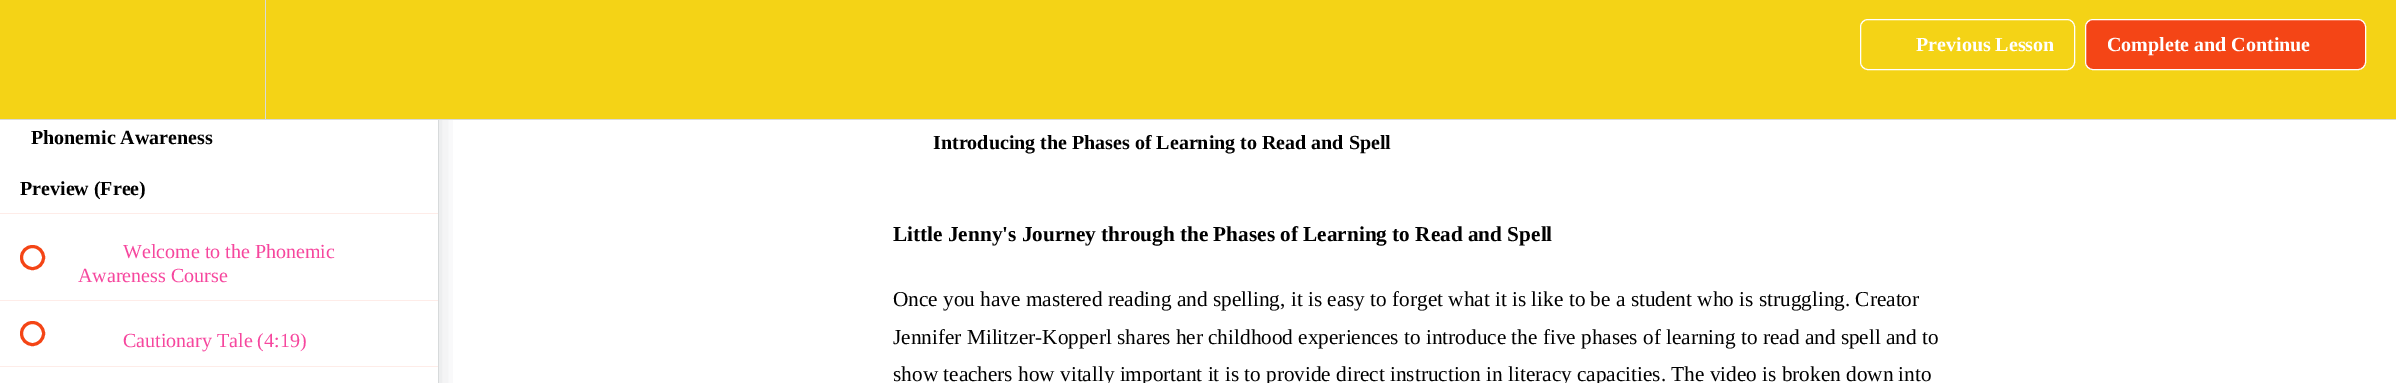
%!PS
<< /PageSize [2396 383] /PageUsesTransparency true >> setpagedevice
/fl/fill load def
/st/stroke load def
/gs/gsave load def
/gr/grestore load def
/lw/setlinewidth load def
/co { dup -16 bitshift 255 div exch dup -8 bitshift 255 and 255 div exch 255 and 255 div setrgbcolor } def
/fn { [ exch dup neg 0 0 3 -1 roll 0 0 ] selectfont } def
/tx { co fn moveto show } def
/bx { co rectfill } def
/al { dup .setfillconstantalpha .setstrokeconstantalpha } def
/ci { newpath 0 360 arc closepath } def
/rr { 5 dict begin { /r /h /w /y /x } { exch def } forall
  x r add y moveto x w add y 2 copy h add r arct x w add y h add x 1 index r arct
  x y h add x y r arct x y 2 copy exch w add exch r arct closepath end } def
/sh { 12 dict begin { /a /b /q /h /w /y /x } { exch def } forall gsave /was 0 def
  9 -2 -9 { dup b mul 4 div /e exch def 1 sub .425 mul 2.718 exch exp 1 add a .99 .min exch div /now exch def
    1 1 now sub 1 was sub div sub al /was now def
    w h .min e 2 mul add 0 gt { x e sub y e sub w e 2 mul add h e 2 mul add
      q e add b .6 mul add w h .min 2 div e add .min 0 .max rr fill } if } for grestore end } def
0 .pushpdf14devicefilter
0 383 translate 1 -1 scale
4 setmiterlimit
0 0 2396 383 16#FFFFFF bx
gs
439 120 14 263 rectclip
16#20272D co
0 103 439 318 0 12.5 .15 sh
gr
0 0 2396 119 16#F4D316 bx
0 119 2396 1 16#D7DADB bx
265 0 1 119 16#D7DADB bx
16#FFFFFF co
1860.5 19.5 214 50 7.5 rr st
16#F44516 co
2085.5 19.5 280 50 7.5 rr gs fl gr
16#FFFFFF co
st
438 120 1 263 16#D7DADB bx
0 213 438 1 16#FEECE8 bx
0 300 438 1 16#FEECE8 bx
16#F44516 co
3 lw
32.5 257.5 11 ci st
0 366 438 1 16#FEECE8 bx
16#F44516 co
32.5 333.5 11 ci st
(Previous Lesson) 1916 51 /LiberationSerif-Bold 20 16#FFFFFF tx
(Complete and Continue) 2107 51 /LiberationSerif-Bold 20 16#FFFFFF tx
(Phonemic Awareness) 31 144 /LiberationSerif-Bold 20 16#000000 tx
(Preview \(Free\)) 20 195 /LiberationSerif-Bold 20 16#000000 tx
(Welcome to the Phonemic) 123 258 /LiberationSerif-Regular 20 16#F6479E tx
(Awareness Course) 78 282 /LiberationSerif-Regular 20 16#F6479E tx
(Cautionary Tale \(4:19\)) 123 347 /LiberationSerif-Regular 20 16#F6479E tx
(Introducing the Phases of Learning to Read and Spell) 933 149 /LiberationSerif-Bold 20 16#000000 tx
(Little Jenny's Journey through the Phases of Learning to Read and Spell) 893 241 /LiberationSerif-Bold 21.25 16#000000 tx
(Once you have mastered reading and spelling, it is easy to forget what it is like to be a student who is struggling. Creator) 893 306 /LiberationSerif-Regular 21.25 16#000000 tx
(Jennifer Militzer-Kopperl shares her childhood experiences to introduce the five phases of learning to read and spell and to) 893 344 /LiberationSerif-Regular 21.25 16#000000 tx
(show teachers how vitally important it is to provide direct instruction in literacy capacities. The video is broken down into) 893 381 /LiberationSerif-Regular 21.25 16#000000 tx
.poppdf14devicefilter showpage
